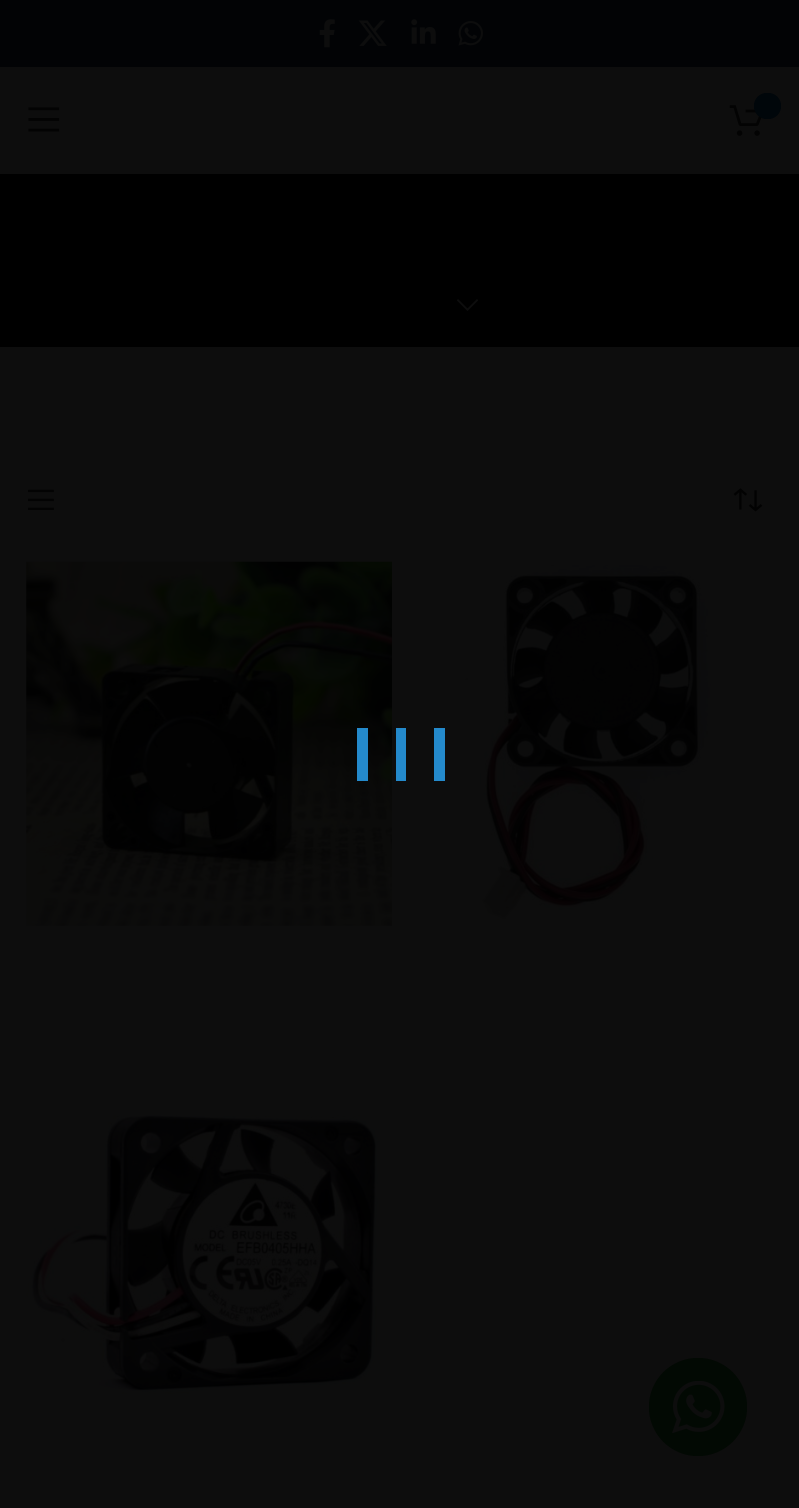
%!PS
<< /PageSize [799 1508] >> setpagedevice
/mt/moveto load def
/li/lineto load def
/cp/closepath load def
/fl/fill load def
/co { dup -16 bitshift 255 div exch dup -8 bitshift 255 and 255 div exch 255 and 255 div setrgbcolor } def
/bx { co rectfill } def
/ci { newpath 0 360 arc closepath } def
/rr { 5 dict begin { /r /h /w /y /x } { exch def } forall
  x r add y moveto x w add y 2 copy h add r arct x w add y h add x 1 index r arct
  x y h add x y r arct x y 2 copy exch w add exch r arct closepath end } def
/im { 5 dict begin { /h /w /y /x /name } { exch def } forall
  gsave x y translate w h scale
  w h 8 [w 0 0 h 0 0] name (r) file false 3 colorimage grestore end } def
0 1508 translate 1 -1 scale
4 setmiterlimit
0 0 799 1508 16#0D0D0D bx
0 0 799 67 16#020305 bx
(media/1.raw) 319 19 16 29 im
(media/2.raw) 358 20 29 26 im
(media/3.raw) 411 19 25 25 im
(media/4.raw) 458 21 25 25 im
(media/5.raw) 28 107 32 25 im
(media/6.raw) 729 105 33 31 im
16#00060A co
754 93 27 26 13 rr fl
0 174 799 173 16#000000 bx
16#0D0D0D co
477 299 mt 467.5 308.5 li 458 299 li 457 300.5 li 467.5 311 li 478 300.5 li cp fl
(media/7.raw) 28 489 26 21 im
(media/8.raw) 733 488 30 24 im
(media/9.raw) 26 561 366 365 im
(media/10.raw) 465 565 246 355 im
(media/11.raw) 26 1115 354 279 im
357 728 11 53 16#248ACC bx
396 728 10 53 16#248ACC bx
434 728 11 53 16#248ACC bx
16#020903 co
698 1407 49 ci fl
(media/12.raw) 672 1381 53 52 im
showpage
